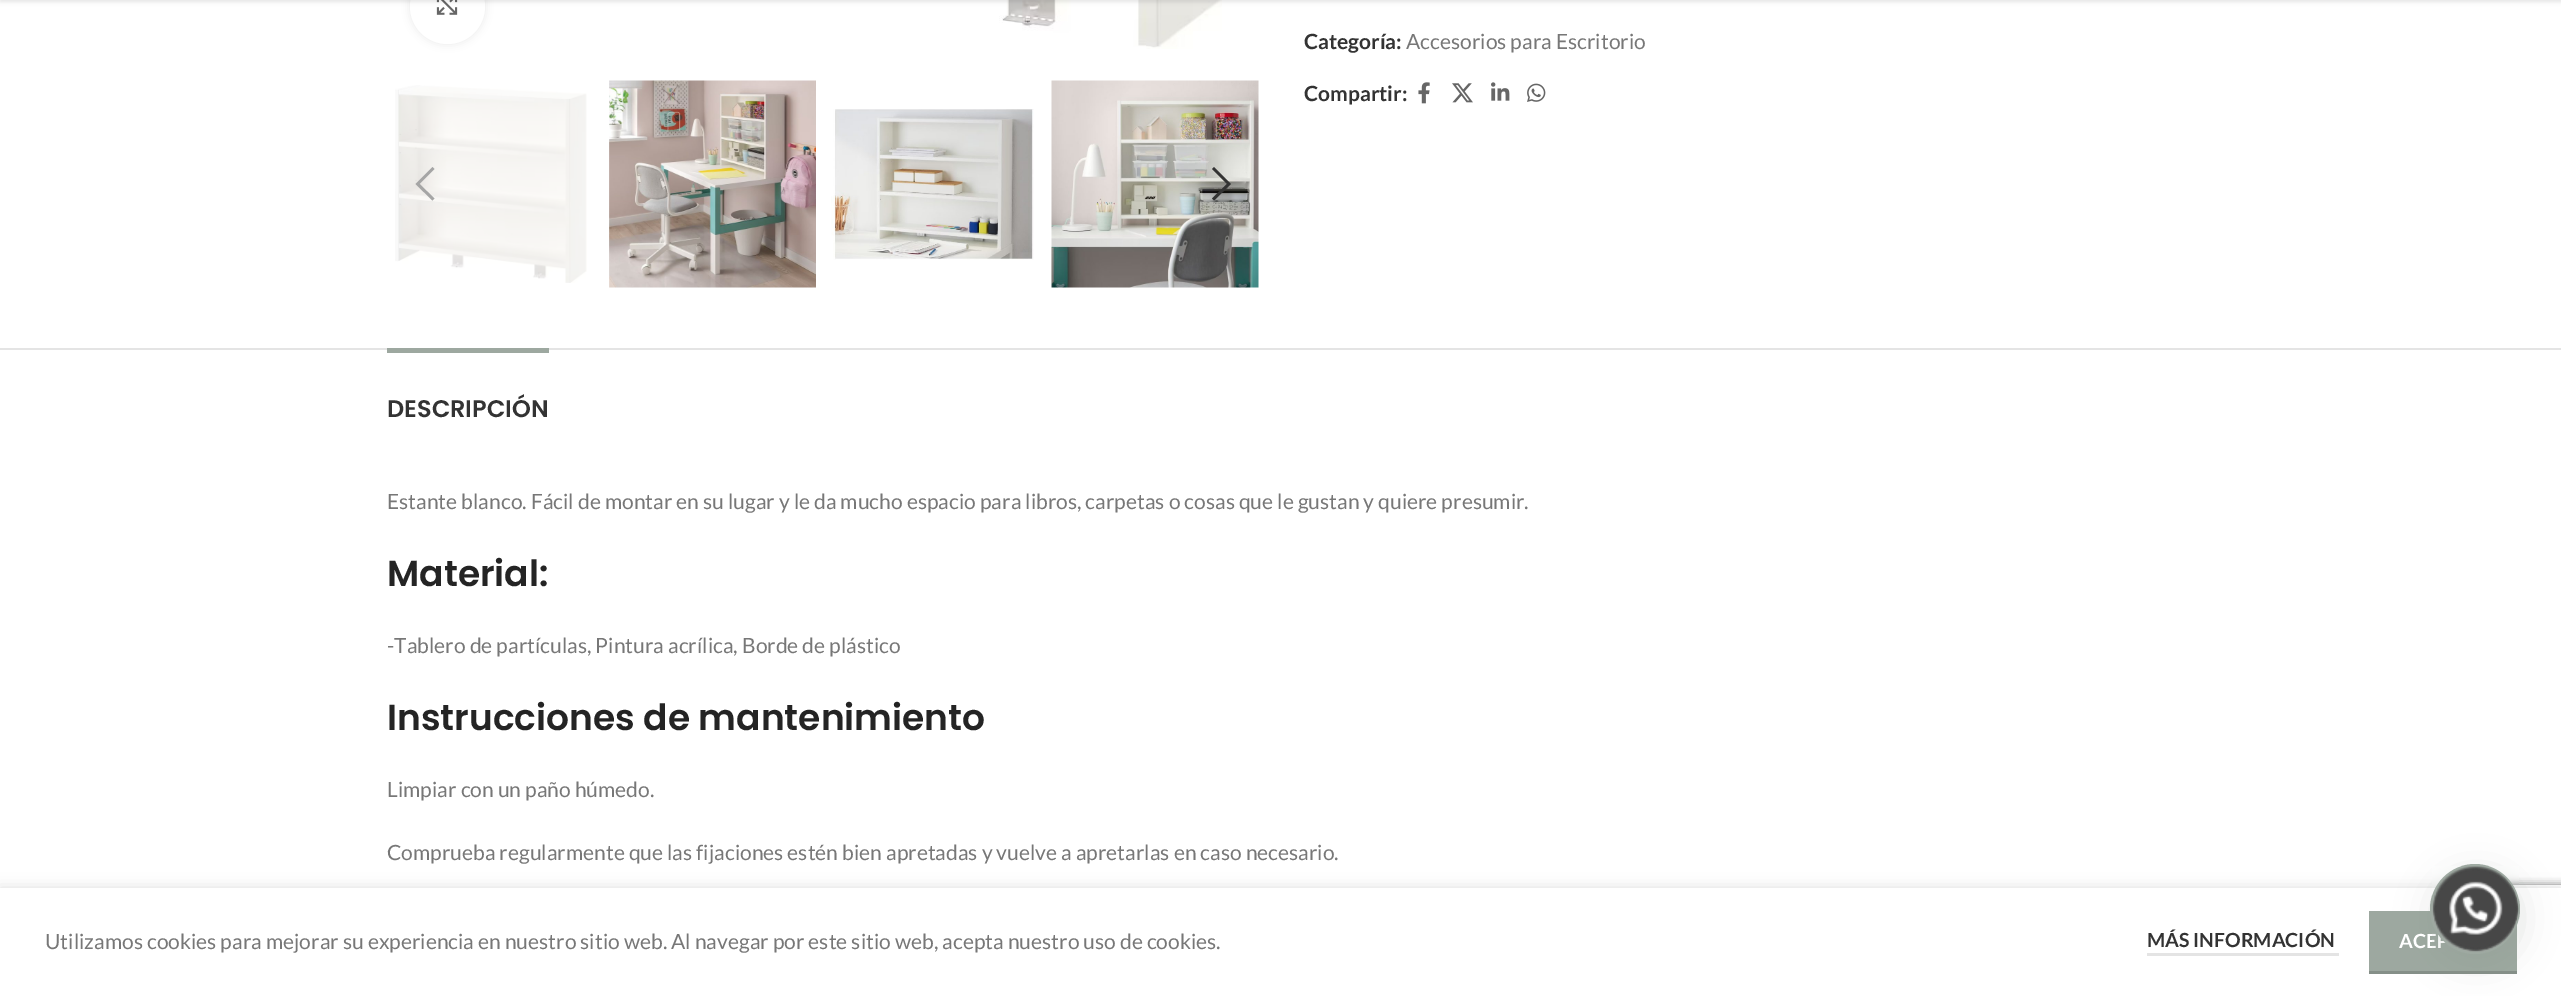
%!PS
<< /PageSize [2561 996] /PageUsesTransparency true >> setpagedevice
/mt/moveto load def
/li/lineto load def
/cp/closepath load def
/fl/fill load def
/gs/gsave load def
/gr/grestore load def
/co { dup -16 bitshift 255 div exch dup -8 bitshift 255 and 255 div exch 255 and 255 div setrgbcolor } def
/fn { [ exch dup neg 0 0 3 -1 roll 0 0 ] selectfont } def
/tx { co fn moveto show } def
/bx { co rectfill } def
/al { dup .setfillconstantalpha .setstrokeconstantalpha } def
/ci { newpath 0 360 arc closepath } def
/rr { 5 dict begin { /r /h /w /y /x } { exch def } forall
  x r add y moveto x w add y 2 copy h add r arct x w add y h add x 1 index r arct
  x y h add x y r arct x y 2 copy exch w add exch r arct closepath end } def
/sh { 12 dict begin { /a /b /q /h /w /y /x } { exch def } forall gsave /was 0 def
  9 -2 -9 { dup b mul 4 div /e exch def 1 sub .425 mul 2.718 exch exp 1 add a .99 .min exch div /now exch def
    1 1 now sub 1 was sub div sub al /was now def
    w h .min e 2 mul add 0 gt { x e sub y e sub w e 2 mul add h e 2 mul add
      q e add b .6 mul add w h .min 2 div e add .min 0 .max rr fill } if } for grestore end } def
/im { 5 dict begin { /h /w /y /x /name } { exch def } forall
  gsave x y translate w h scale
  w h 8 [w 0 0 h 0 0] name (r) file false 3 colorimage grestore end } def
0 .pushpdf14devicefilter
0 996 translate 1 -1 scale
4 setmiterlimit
0 0 2561 996 16#FFFFFF bx
16#000000 co
410 -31 75 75 37.5 4 .08 sh
16#FFFFFF co
447.5 6.5 37.5 ci fl
(media/1.raw) 436 0 22 15 im
(media/2.raw) 999 0 223 49 im
16#000000 co
0 -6 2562 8 0 2 .1 sh
(media/3.raw) 395 85 192 198 im
(media/4.raw) 609 80 207 208 im
(media/5.raw) 831 109 203 151 im
(media/6.raw) 1051 80 208 208 im
16#A5A5A5 co
434.5 169 mt 432.5 167 li 415.5 184 li 432.5 200.5 li 434.5 198.5 li 419.5 184 li cp fl
16#333333 co
1212 169 mt 1227 184 li 1212 198.5 li 1214 200.5 li 1231 184 li 1214 167 li cp fl
(media/7.raw) 1418 82 12 22 im
(media/8.raw) 1452 83 21 20 im
(media/9.raw) 1491 82 19 19 im
(media/10.raw) 1527 83 19 19 im
0 348 2561 2 16#E4E4E4 bx
387 348 162 5 16#9DA8A0 bx
16#000000 co
0 888 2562 108 0 7 .14 sh
gs
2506 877 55 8 rectclip
16#808080 co
2457 885 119 90 3 4 1 sh
gr
0 888 2561 108 16#FFFFFF bx
2369 911 148 60 16#9DA8A0 bx
2369 971 148 3 16#858F88 bx
16#839186 co
2432 873 90 90 45 18 .24 sh
2147 953 192 3 16#E4E4E4 bx
(Categoría:) 1304 49 /Lato-Bold 21 16#333333 tx
(Accesorios para Escritorio) 1406 49 /Lato-Regular 21 16#777777 tx
(Compartir:) 1304 101 /Lato-Bold 21 16#333333 tx
(DESCRIPCIÓN) 387 417 /Poppins-SemiBold 24 16#333333 tx
(Estante blanco. Fácil de montar en su lugar y le da mucho espacio para libros, carpetas o cosas que le gustan y quiere presumir.) 387 509 /Lato-Regular 21 16#777777 tx
(Material:) 387 586 /Poppins-SemiBold 36 16#242424 tx
(-Tablero de partículas, Pintura acrílica, Borde de plástico) 387 653 /Lato-Regular 21 16#777777 tx
(Instrucciones de mantenimiento) 387 730 /Poppins-SemiBold 36 16#242424 tx
(Limpiar con un paño húmedo.) 387 797 /Lato-Regular 21 16#777777 tx
(Comprueba regularmente que las fijaciones estén bien apretadas y vuelve a apretarlas en caso necesario.) 387 860 /Lato-Regular 21 16#777777 tx
(Utilizamos cookies para mejorar su experiencia en nuestro sitio web. Al navegar por este sitio web, acepta nuestro uso de cookies.) 45 949 /Lato-Regular 21 16#777777 tx
(MÁS INFORMACIÓN) 2147 947 /Lato-Bold 19.5 16#333333 tx
(ACEP) 2399 948 /Lato-Bold 19.5 16#FFFFFF tx
16#9EA9A1 co
2475 909 45 ci fl
(media/11.raw) 2432 866 87 86 im
.poppdf14devicefilter showpage
